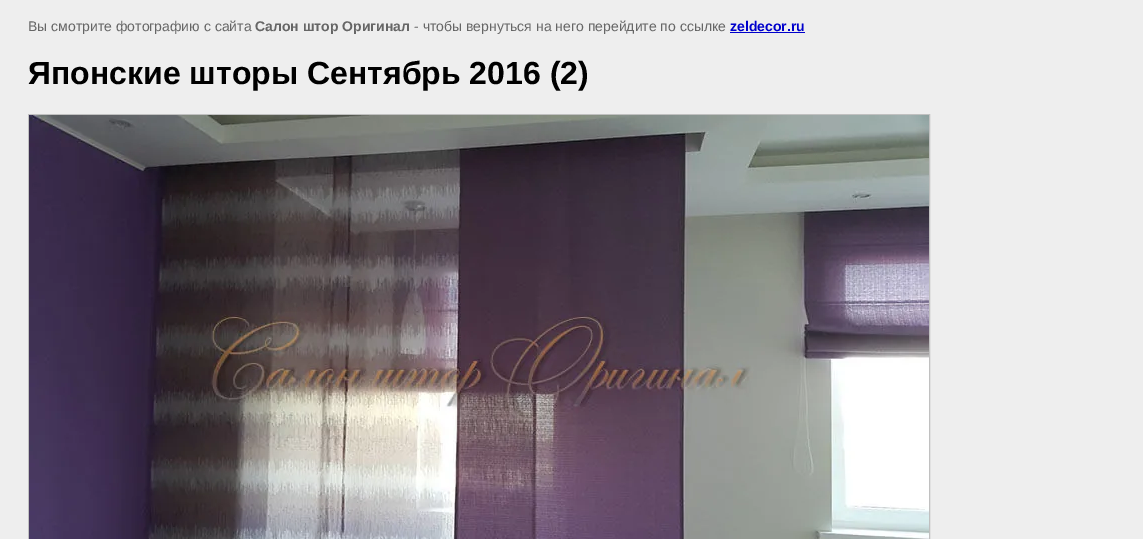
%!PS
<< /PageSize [1143 539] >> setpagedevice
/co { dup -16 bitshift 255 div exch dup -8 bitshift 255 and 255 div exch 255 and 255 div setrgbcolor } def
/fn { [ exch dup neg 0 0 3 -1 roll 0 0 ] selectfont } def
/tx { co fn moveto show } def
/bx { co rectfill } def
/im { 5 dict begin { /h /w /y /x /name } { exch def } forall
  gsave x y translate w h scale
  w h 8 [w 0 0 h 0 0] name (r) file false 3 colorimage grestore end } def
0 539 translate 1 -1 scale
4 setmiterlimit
0 0 1143 539 16#EEEEEE bx
730 32 75 1 16#0000CC bx
16#C0C0C0 co
28.5 114.5 901 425 rectstroke
(media/1.raw) 29 115 900 424 im
(Вы смотрите фотографию с сайта) 28 31 /LiberationSans-Regular 14 16#666666 tx
(Салон штор Оригинал) 255 31 /LiberationSans-Bold 14 16#666666 tx
(- чтобы вернуться на него перейдите по ссылке) 414 31 /LiberationSans-Regular 14 16#666666 tx
(zeldecor.ru) 730 31 /LiberationSans-Bold 14 16#0000CC tx
(Японские шторы Сентябрь 2016 \(2\)) 28 84 /LiberationSans-Bold 32 16#000000 tx
showpage
